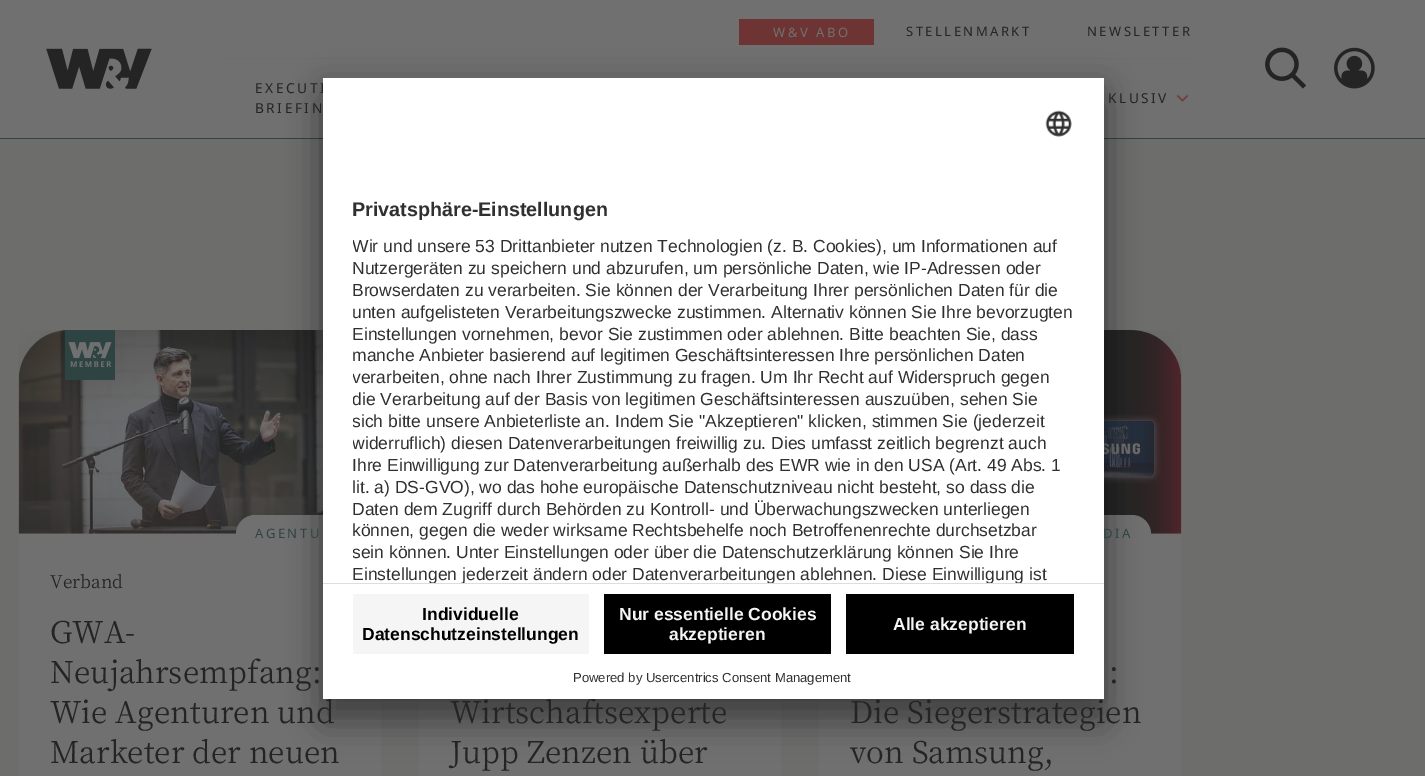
%!PS
<< /PageSize [1425 776] /PageUsesTransparency true >> setpagedevice
/mt/moveto load def
/fl/fill load def
/gs/gsave load def
/gr/grestore load def
/co { dup -16 bitshift 255 div exch dup -8 bitshift 255 and 255 div exch 255 and 255 div setrgbcolor } def
/fn { [ exch dup neg 0 0 3 -1 roll 0 0 ] selectfont } def
/tx { co fn moveto show } def
/bx { co rectfill } def
/al { dup .setfillconstantalpha .setstrokeconstantalpha } def
/rr { 5 dict begin { /r /h /w /y /x } { exch def } forall
  x r add y moveto x w add y 2 copy h add r arct x w add y h add x 1 index r arct
  x y h add x y r arct x y 2 copy exch w add exch r arct closepath end } def
/sh { 12 dict begin { /a /b /q /h /w /y /x } { exch def } forall gsave /was 0 def
  9 -2 -9 { dup b mul 4 div /e exch def 1 sub .425 mul 2.718 exch exp 1 add a .99 .min exch div /now exch def
    1 1 now sub 1 was sub div sub al /was now def
    w h .min e 2 mul add 0 gt { x e sub y e sub w e 2 mul add h e 2 mul add
      q e add b .6 mul add w h .min 2 div e add .min 0 .max rr fill } if } for grestore end } def
/im { 5 dict begin { /h /w /y /x /name } { exch def } forall
  gsave x y translate w h scale
  w h 8 [w 0 0 h 0 0] name (r) file false 3 colorimage grestore end } def
0 .pushpdf14devicefilter
0 776 translate 1 -1 scale
4 setmiterlimit
0 0 1425 776 16#6D6D6C bx
0 0 1425 138 16#707070 bx
0 138 1425 1 16#2E4443 bx
(media/1.raw) 46 48 106 41 im
224 58 967 1 16#6D6D6C bx
739 19 135 26 16#6E3434 bx
(media/2.raw) 1176 94 13 8 im
(media/3.raw) 1265 47 42 42 im
(media/4.raw) 1334 47 41 42 im
16#707070 co
19 330 362 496 50 rr fl
(media/6.raw) 18 330 305 204 im
236 515 115 38 19 rr fl
419 699 362 77 16#707070 bx
819 330 362 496 50 rr fl
(media/8.raw) 1104 330 78 204 im
1060 515 91 38 19 rr fl
16#000000 co
323 103 781 621 0 17.5 .3 sh
323 84 781 621 0 16 .22 sh
(media/7.raw) 65 330 50 50 im
/NotoSans-Regular 13 fn
16#707070 co
773 37 mt 2.5 0 (W&V ABO) ashow
16#242424 co
906 36 mt 2.5 0 (STELLENMARKT) ashow
1087 36 mt 2.5 0 (NEWSLETTER) ashow
/NotoSans-Regular 13.75 fn
255 93 mt 2.5 0 (EXECUTI) ashow
255 113 mt 2.5 0 (BRIEFIN) ashow
1108 103 mt 2.5 0 (KLUSIV) ashow
/NotoSans-Regular 13 fn
16#2E4443 co
255 538 mt 2.5 0 (AGENTU) ashow
(Verband) 50 588 /NotoSerifJP-Regular 17.5 16#242424 tx
(GWA-) 50 643 /NotoSerifJP-Regular 30 16#242424 tx
(Neujahrsempfang:) 50 683 /NotoSerifJP-Regular 30 16#242424 tx
(Wie Agenturen und) 50 723 /NotoSerifJP-Regular 30 16#242424 tx
(Marketer der neuen) 50 763 /NotoSerifJP-Regular 30 16#242424 tx
(Wirtschaftsexperte) 450 723 /NotoSerifJP-Regular 30 16#242424 tx
323 78 781 621 16#FFFFFF bx
(media/5.raw) 1045 110 27 27 im
gs
353 231 721 352 rectclip
(Einstellungen jederzeit ändern oder Datenverarbeitungen ablehnen. Diese Einwilligung ist) 352 580 /LiberationSans-Regular 17.5 16#303030 tx
(sein können. Unter Einstellungen oder über die Datenschutzerklärung können Sie Ihre) 352 558 /LiberationSans-Regular 17.5 16#303030 tx
gr
(können, gegen die weder wirksame Rechtsbehelfe noch Betroffenenrechte durchsetzbar) 352 536 /LiberationSans-Regular 17.5 16#303030 tx
(Daten dem Zugriff durch Behörden zu Kontroll- und Überwachungszwecken unterliegen) 352 515 /LiberationSans-Regular 17.5 16#303030 tx
(lit. a\) DS-GVO\), wo das hohe europäische Datenschutzniveau nicht besteht, so dass die) 352 493 /LiberationSans-Regular 17.5 16#303030 tx
(Ihre Einwilligung zur Datenverarbeitung außerhalb des EWR wie in den USA \(Art. 49 Abs. 1) 352 471 /LiberationSans-Regular 17.5 16#303030 tx
gs
353 231 721 352 rectclip
(widerruflich\) diesen Datenverarbeitungen freiwillig zu. Dies umfasst zeitlich begrenzt auch) 352 449 /LiberationSans-Regular 17.5 16#303030 tx
gr
(Indem Sie "Akzeptieren" klicken, stimmen Sie \(jederzeit) 615 427 /LiberationSans-Regular 17.5 16#303030 tx
gs
353 231 721 352 rectclip
(sich bitte unsere Anbieterliste an.) 352 427 /LiberationSans-Regular 17.5 16#303030 tx
(die Verarbeitung auf der Basis von legitimen Geschäftsinteressen auszuüben, sehen Sie) 352 405 /LiberationSans-Regular 17.5 16#303030 tx
(verarbeiten, ohne nach Ihrer Zustimmung zu fragen. Um Ihr Recht auf Widerspruch gegen) 352 383 /LiberationSans-Regular 17.5 16#303030 tx
gr
(manche Anbieter basierend auf legitimen Geschäftsinteressen Ihre persönlichen Daten) 352 361 /LiberationSans-Regular 17.5 16#303030 tx
(Einstellungen vornehmen, bevor Sie zustimmen oder ablehnen. Bitte beachten Sie, dass) 352 340 /LiberationSans-Regular 17.5 16#303030 tx
(unten aufgelisteten Verarbeitungszwecke zustimmen. Alternativ können Sie Ihre bevorzugten) 352 318 /LiberationSans-Regular 17.5 16#303030 tx
(Browserdaten zu verarbeiten. Sie können der Verarbeitung Ihrer persönlichen Daten für die) 352 296 /LiberationSans-Regular 17.5 16#303030 tx
(Nutzergeräten zu speichern und abzurufen, um persönliche Daten, wie IP-Adressen oder) 352 274 /LiberationSans-Regular 17.5 16#303030 tx
gs
353 231 721 352 rectclip
(Wir und unsere 53 Drittanbieter nutzen Technologien \(z. B. Cookies\), um Informationen auf) 352 252 /LiberationSans-Regular 17.5 16#303030 tx
gr
(Privatsphäre-Einstellungen) 352 216 /LiberationSans-Bold 19.75 16#303030 tx
(Powered by Usercentrics Consent Management) 573 682 /LiberationSans-Regular 13.1 16#303030 tx
846 594 228 60 16#000000 bx
(Alle akzeptieren) 893 630 /LiberationSans-Bold 17.5 16#F5F5F5 tx
604 594 227 60 16#000000 bx
(akzeptieren) 669 640 /LiberationSans-Bold 17.5 16#F5F5F5 tx
(Nur essentielle Cookies) 619 620 /LiberationSans-Bold 17.5 16#F5F5F5 tx
353 594 236 60 16#F5F5F5 bx
(Datenschutzeinstellungen) 362 640 /LiberationSans-Bold 17.5 16#000000 tx
(Individuelle) 422 620 /LiberationSans-Bold 17.5 16#000000 tx
323 583 781 1 16#DDDDDD bx
(Jupp Zenzen über) 450 763 /NotoSerifJP-Regular 30 16#242424 tx
/NotoSans-Regular 13 fn
16#2E4443 co
1103 538 mt 2.5 0 (DIA) ashow
(:) 1109 683 /NotoSerifJP-Regular 30 16#242424 tx
(Die Siegerstrategien) 850 723 /NotoSerifJP-Regular 30 16#242424 tx
(von Samsung,) 850 763 /NotoSerifJP-Regular 30 16#242424 tx
.poppdf14devicefilter showpage
